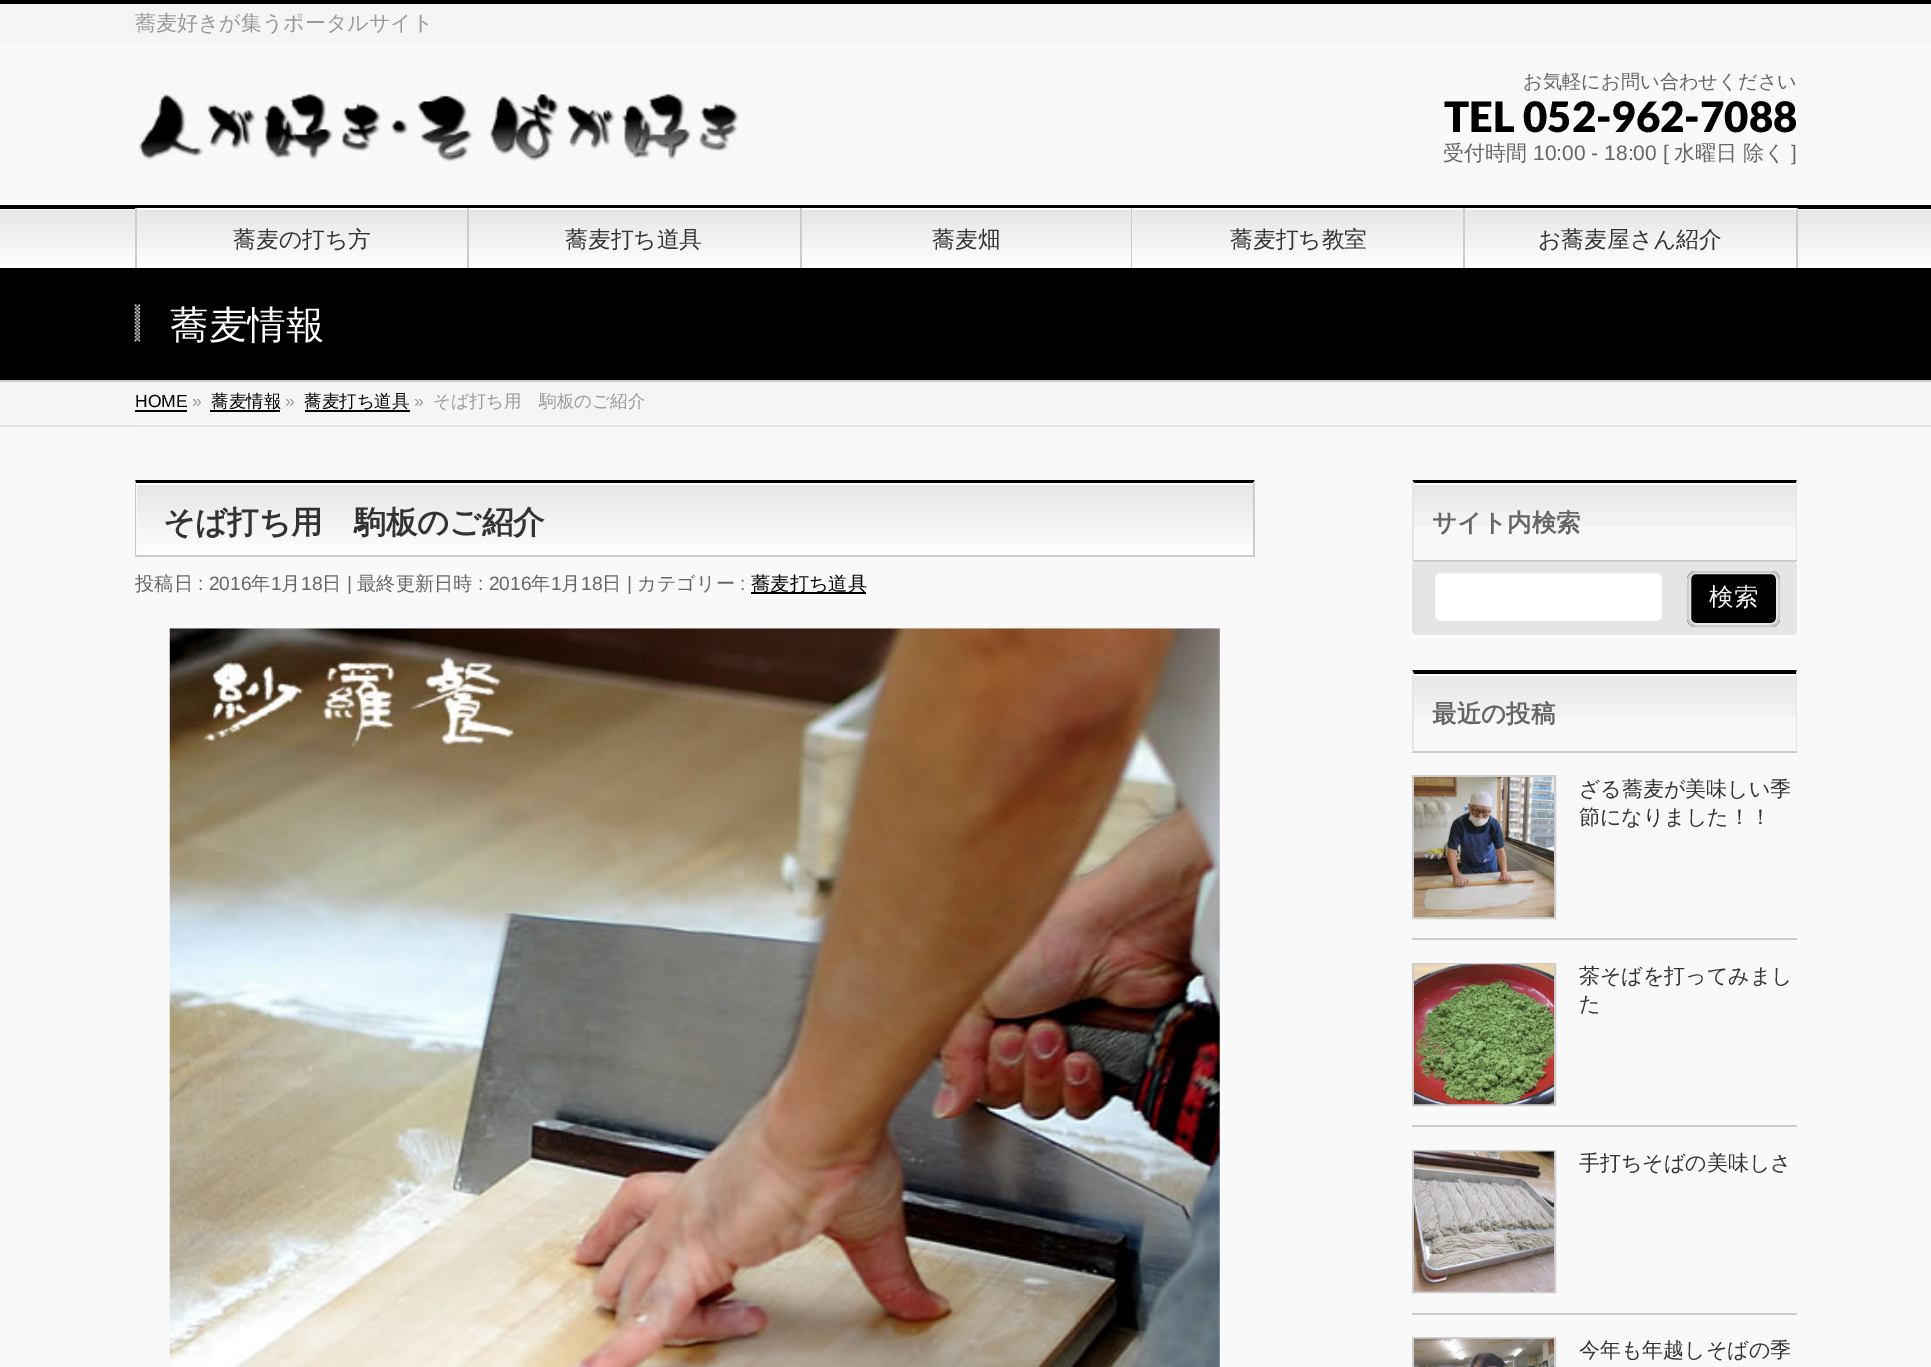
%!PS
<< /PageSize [1931 1367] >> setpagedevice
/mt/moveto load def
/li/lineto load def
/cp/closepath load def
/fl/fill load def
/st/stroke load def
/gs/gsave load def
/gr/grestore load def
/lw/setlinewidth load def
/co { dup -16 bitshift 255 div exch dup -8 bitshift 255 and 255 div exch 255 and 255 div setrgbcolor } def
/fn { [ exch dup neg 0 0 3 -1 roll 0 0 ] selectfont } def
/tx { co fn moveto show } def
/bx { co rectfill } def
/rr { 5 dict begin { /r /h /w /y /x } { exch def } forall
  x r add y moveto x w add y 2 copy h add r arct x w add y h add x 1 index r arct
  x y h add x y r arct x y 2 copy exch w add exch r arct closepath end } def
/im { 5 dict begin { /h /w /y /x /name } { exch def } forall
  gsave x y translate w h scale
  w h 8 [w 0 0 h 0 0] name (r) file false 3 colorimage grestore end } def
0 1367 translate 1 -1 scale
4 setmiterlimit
0 0 1931 1367 16#F9F9F9 bx
0 4 1931 38 16#F5F5F5 bx
0 0 1931 4 16#000000 bx
(media/1.raw) 135 87 605 75 im
gs 0 210 mt 1931 210 li 1931 268 li 0 268 li cp clip newpath
<< /ShadingType 2 /ColorSpace /DeviceRGB /Coords [966 208 966 268] /Extend [true true] /Function << /FunctionType 2 /Domain [0 1] /C0 [.898 .898 .898] /C1 [1 1 1] /N 1 >> >> shfill gr
0 209 1931 1 16#FFFFFF bx
0 205 1931 4 16#000000 bx
135 208 2 60 16#CCCCCC bx
137 208 330 1 16#FFFFFF bx
467 208 2 60 16#CCCCCC bx
469 208 331 1 16#FFFFFF bx
800 208 2 60 16#CCCCCC bx
802 208 329 1 16#FFFFFF bx
1131 208 1 60 16#CCCCCC bx
1132 208 331 1 16#FFFFFF bx
1463 208 2 60 16#CCCCCC bx
1465 208 331 1 16#FFFFFF bx
1796 208 2 60 16#CCCCCC bx
0 268 1931 112 16#000000 bx
0 380 1931 2 16#CCCCCC bx
(media/2.raw) 134 304 6 38 im
0 382 1931 43 16#F5F5F5 bx
0 425 1931 2 16#E5E5E5 bx
135 424 1662 1 16#FFFFFF bx
135 410 52 2 16#000000 bx
210 410 70 2 16#000000 bx
305 410 105 2 16#000000 bx
gs 137 485 mt 1253 485 li 1253 555 li 137 555 li cp clip newpath
<< /ShadingType 2 /ColorSpace /DeviceRGB /Coords [137 483 137 555] /Extend [true true] /Function << /FunctionType 2 /Domain [0 1] /C0 [.898 .898 .898] /C1 [1 1 1] /N 1 >> >> shfill gr
137 483 1116 2 16#FFFFFF bx
16#000000 co
135 480 mt 1255 480 li 1253 483 li 136 483 li cp fl
16#CCCCCC co
1255 480 mt 1255 556 li 1253 555 li 1253 483 li cp fl
135 555 1120 2 16#CCCCCC bx
135 556 mt 135 480 li 136 483 li 136 555 li cp fl
751 592 115 2 16#000000 bx
(media/3.raw) 169 628 1051 739 im
(media/4.raw) 1414 485 382 41 im
1414 483 382 2 16#FFFFFF bx
16#000000 co
1412 480 mt 1797 480 li 1796 483 li 1414 483 li cp fl
16#E5E5E5 co
1797 480 mt 1797 562 li 1796 560 li 1796 483 li cp fl
1412 560 385 2 16#CCCCCC bx
16#E5E5E5 co
1412 562 mt 1412 480 li 1414 483 li 1414 560 li cp fl
1412 562 385 73 5 rr fl
16#FFFFFF co
1434 572 229 50 6 rr gs fl gr
16#E5E5E5 co
2 lw
st
16#000000 co
1687 571 93 56 9 rr fl
16#E6E6E6 co
1690 573 87 51 6 rr st
16#CCCCCC co
1688 572 91 54 8 rr st
(media/5.raw) 1413 673 384 44 im
1414 674 382 2 16#FFFFFF bx
16#000000 co
1412 670 mt 1797 670 li 1796 674 li 1414 674 li cp fl
16#E5E5E5 co
1797 670 mt 1797 752 li 1796 751 li 1796 674 li cp fl
1412 751 385 2 16#CCCCCC bx
16#E5E5E5 co
1412 752 mt 1412 670 li 1414 674 li 1414 751 li cp fl
1412 938 385 2 16#CCCCCC bx
1413 776 142 142 rectstroke
(media/6.raw) 1414 777 140 140 im
1412 1125 385 2 16#CCCCCC bx
1413 964 142 141 rectstroke
(media/7.raw) 1414 964 140 141 im
1412 1313 385 2 16#CCCCCC bx
1413 1151 142 141 rectstroke
(media/8.raw) 1414 1151 140 141 im
1413 1338 142 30 rectstroke
(media/9.raw) 1414 1338 140 29 im
(蕎麦好きが集うポータルサイト) 135 30 /WenQuanYiZenHei-Medium 21 16#999999 tx
(お気軽にお問い合わせください) 1523 88 /WenQuanYiZenHei-Medium 19.25 16#666666 tx
(TEL 052-962-7088) 1444 132 /Lato-Black 42 16#000000 tx
(受付時間) 1443 160 /WenQuanYiZenHei-Medium 21 16#666666 tx
(10:00 - 18:00 [) 1533 160 /LiberationSans-Regular 21 16#666666 tx
(水曜日) 1674 160 /WenQuanYiZenHei-Medium 21 16#666666 tx
(除く) 1743 160 /WenQuanYiZenHei-Medium 21 16#666666 tx
(]) 1791 160 /LiberationSans-Regular 21 16#666666 tx
(蕎麦の打ち方) 233 247 /WenQuanYiZenHei-Medium 22.75 16#333333 tx
(蕎麦打ち道具) 565 247 /WenQuanYiZenHei-Medium 22.75 16#333333 tx
(蕎麦畑) 932 247 /WenQuanYiZenHei-Medium 22.75 16#333333 tx
(蕎麦打ち教室) 1230 247 /WenQuanYiZenHei-Medium 22.75 16#333333 tx
(お蕎麦屋さん紹介) 1538 247 /WenQuanYiZenHei-Medium 22.75 16#333333 tx
(蕎麦情報) 170 338 /WenQuanYiZenHei-Medium 38.5 16#FFFFFF tx
(HOME) 135 407 /LiberationSans-Regular 17.5 16#000000 tx
(») 192 407 /LiberationSans-Regular 17.5 16#999999 tx
(蕎麦情報) 211 407 /WenQuanYiZenHei-Medium 17.5 16#000000 tx
(») 285 407 /LiberationSans-Regular 17.5 16#999999 tx
(蕎麦打ち道具) 304 407 /WenQuanYiZenHei-Medium 17.5 16#000000 tx
(») 414 407 /LiberationSans-Regular 17.5 16#999999 tx
(そば打ち用　駒板のご紹介) 433 407 /WenQuanYiZenHei-Medium 17.5 16#999999 tx
(そば打ち用　駒板のご紹介) 163 533 /WenQuanYiZenHei-Bold 31.5 16#333333 tx
(投稿日) 135 590 /WenQuanYiZenHei-Medium 19.25 16#666666 tx
(: 2016) 198 590 /LiberationSans-Regular 19.25 16#666666 tx
(年) 251 590 /WenQuanYiZenHei-Medium 19.25 16#666666 tx
(1) 271 590 /LiberationSans-Regular 19.25 16#666666 tx
(月) 281 590 /WenQuanYiZenHei-Medium 19.25 16#666666 tx
(18) 301 590 /LiberationSans-Regular 19.25 16#666666 tx
(日) 322 590 /WenQuanYiZenHei-Medium 19.25 16#666666 tx
(|) 347 590 /LiberationSans-Regular 19.25 16#666666 tx
(最終更新日時) 357 590 /WenQuanYiZenHei-Medium 19.25 16#666666 tx
(: 2016) 478 590 /LiberationSans-Regular 19.25 16#666666 tx
(年) 531 590 /WenQuanYiZenHei-Medium 19.25 16#666666 tx
(1) 551 590 /LiberationSans-Regular 19.25 16#666666 tx
(月) 561 590 /WenQuanYiZenHei-Medium 19.25 16#666666 tx
(18) 581 590 /LiberationSans-Regular 19.25 16#666666 tx
(日) 602 590 /WenQuanYiZenHei-Medium 19.25 16#666666 tx
(|) 627 590 /LiberationSans-Regular 19.25 16#666666 tx
(カテゴリー) 637 590 /WenQuanYiZenHei-Medium 19.25 16#666666 tx
(:) 740 590 /LiberationSans-Regular 19.25 16#666666 tx
(蕎麦打ち道具) 751 590 /WenQuanYiZenHei-Medium 19.25 16#000000 tx
(サイト内検索) 1432 531 /WenQuanYiZenHei-Bold 24.5 16#666666 tx
(検索) 1709 605 /WenQuanYiZenHei-Medium 24.5 16#F5F5F5 tx
(最近の投稿) 1432 722 /WenQuanYiZenHei-Bold 24.5 16#666666 tx
(ざる蕎麦が美味しい季) 1579 796 /WenQuanYiZenHei-Medium 21 16#333333 tx
(節になりました！！) 1579 824 /WenQuanYiZenHei-Medium 21 16#333333 tx
(茶そばを打ってみまし) 1579 983 /WenQuanYiZenHei-Medium 21 16#333333 tx
(た) 1579 1011 /WenQuanYiZenHei-Medium 21 16#333333 tx
(手打ちそばの美味しさ) 1579 1170 /WenQuanYiZenHei-Medium 21 16#333333 tx
(今年も年越しそばの季) 1579 1357 /WenQuanYiZenHei-Medium 21 16#333333 tx
showpage
